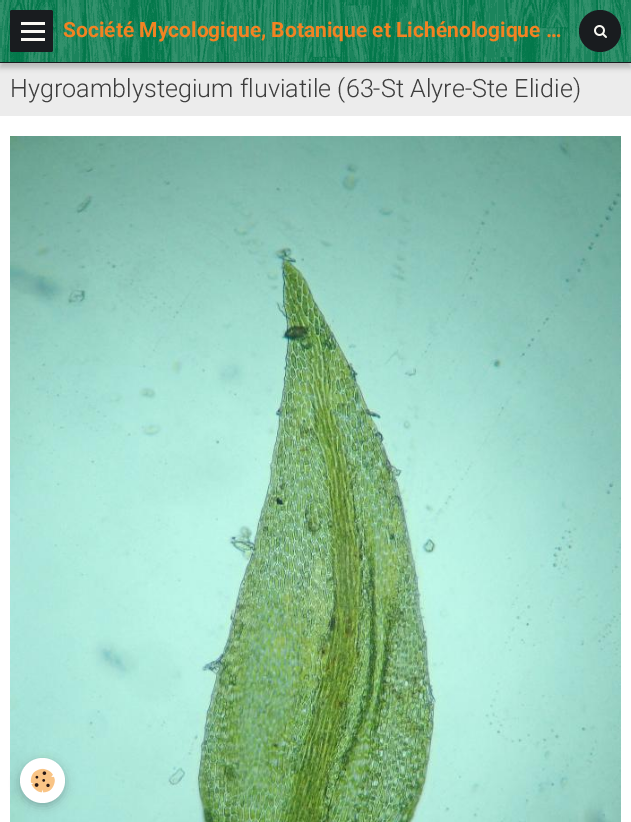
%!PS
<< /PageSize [631 822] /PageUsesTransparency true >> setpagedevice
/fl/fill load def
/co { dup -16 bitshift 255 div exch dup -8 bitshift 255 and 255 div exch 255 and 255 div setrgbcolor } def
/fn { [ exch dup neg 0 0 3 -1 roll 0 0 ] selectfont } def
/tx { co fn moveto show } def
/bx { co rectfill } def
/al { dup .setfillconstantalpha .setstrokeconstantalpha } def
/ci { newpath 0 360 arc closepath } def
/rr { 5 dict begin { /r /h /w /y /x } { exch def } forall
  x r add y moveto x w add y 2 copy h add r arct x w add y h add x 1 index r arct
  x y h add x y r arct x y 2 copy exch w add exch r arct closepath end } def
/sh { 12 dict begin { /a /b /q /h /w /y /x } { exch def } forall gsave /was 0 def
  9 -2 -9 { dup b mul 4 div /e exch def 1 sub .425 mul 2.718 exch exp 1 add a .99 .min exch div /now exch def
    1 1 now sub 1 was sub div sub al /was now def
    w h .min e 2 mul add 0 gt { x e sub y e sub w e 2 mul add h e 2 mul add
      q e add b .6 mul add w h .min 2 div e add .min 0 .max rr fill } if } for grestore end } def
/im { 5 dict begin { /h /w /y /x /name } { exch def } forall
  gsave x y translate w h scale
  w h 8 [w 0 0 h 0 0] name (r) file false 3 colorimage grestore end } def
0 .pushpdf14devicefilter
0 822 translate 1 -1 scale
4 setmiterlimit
0 0 631 822 16#FFFFFF bx
0 63 631 53 16#ECECEC bx
16#000000 co
0 5 631 63 0 2.5 .2 sh
0 0 631 62 16#02774A bx
(media/1.raw) 0 0 631 62 im
0 62 631 1 16#191C1F bx
10 10 43 42 2 rr fl
21 30 24 3 16#FAF9F3 bx
21 22 24 3 16#FAF9F3 bx
21 38 24 3 16#FAF9F3 bx
16#191C1F co
600 31 21 ci fl
(media/2.raw) 594 25 13 13 im
(media/3.raw) 10 136 611 686 im
16#000000 co
20 761 45 45 22.5 5 .24 sh
16#FFFFFF co
42.5 780.5 22.5 ci fl
(media/4.raw) 30 768 25 25 im
(Société Mycologique, Botanique et Lichénologique …) 63 37 /Roboto-Bold 21 16#F28322 tx
(Hygroamblystegium fluviatile \(63-St Alyre-Ste Elidie\)) 10 97 /Roboto-Light 25.2 16#3D3D3D tx
.poppdf14devicefilter showpage
